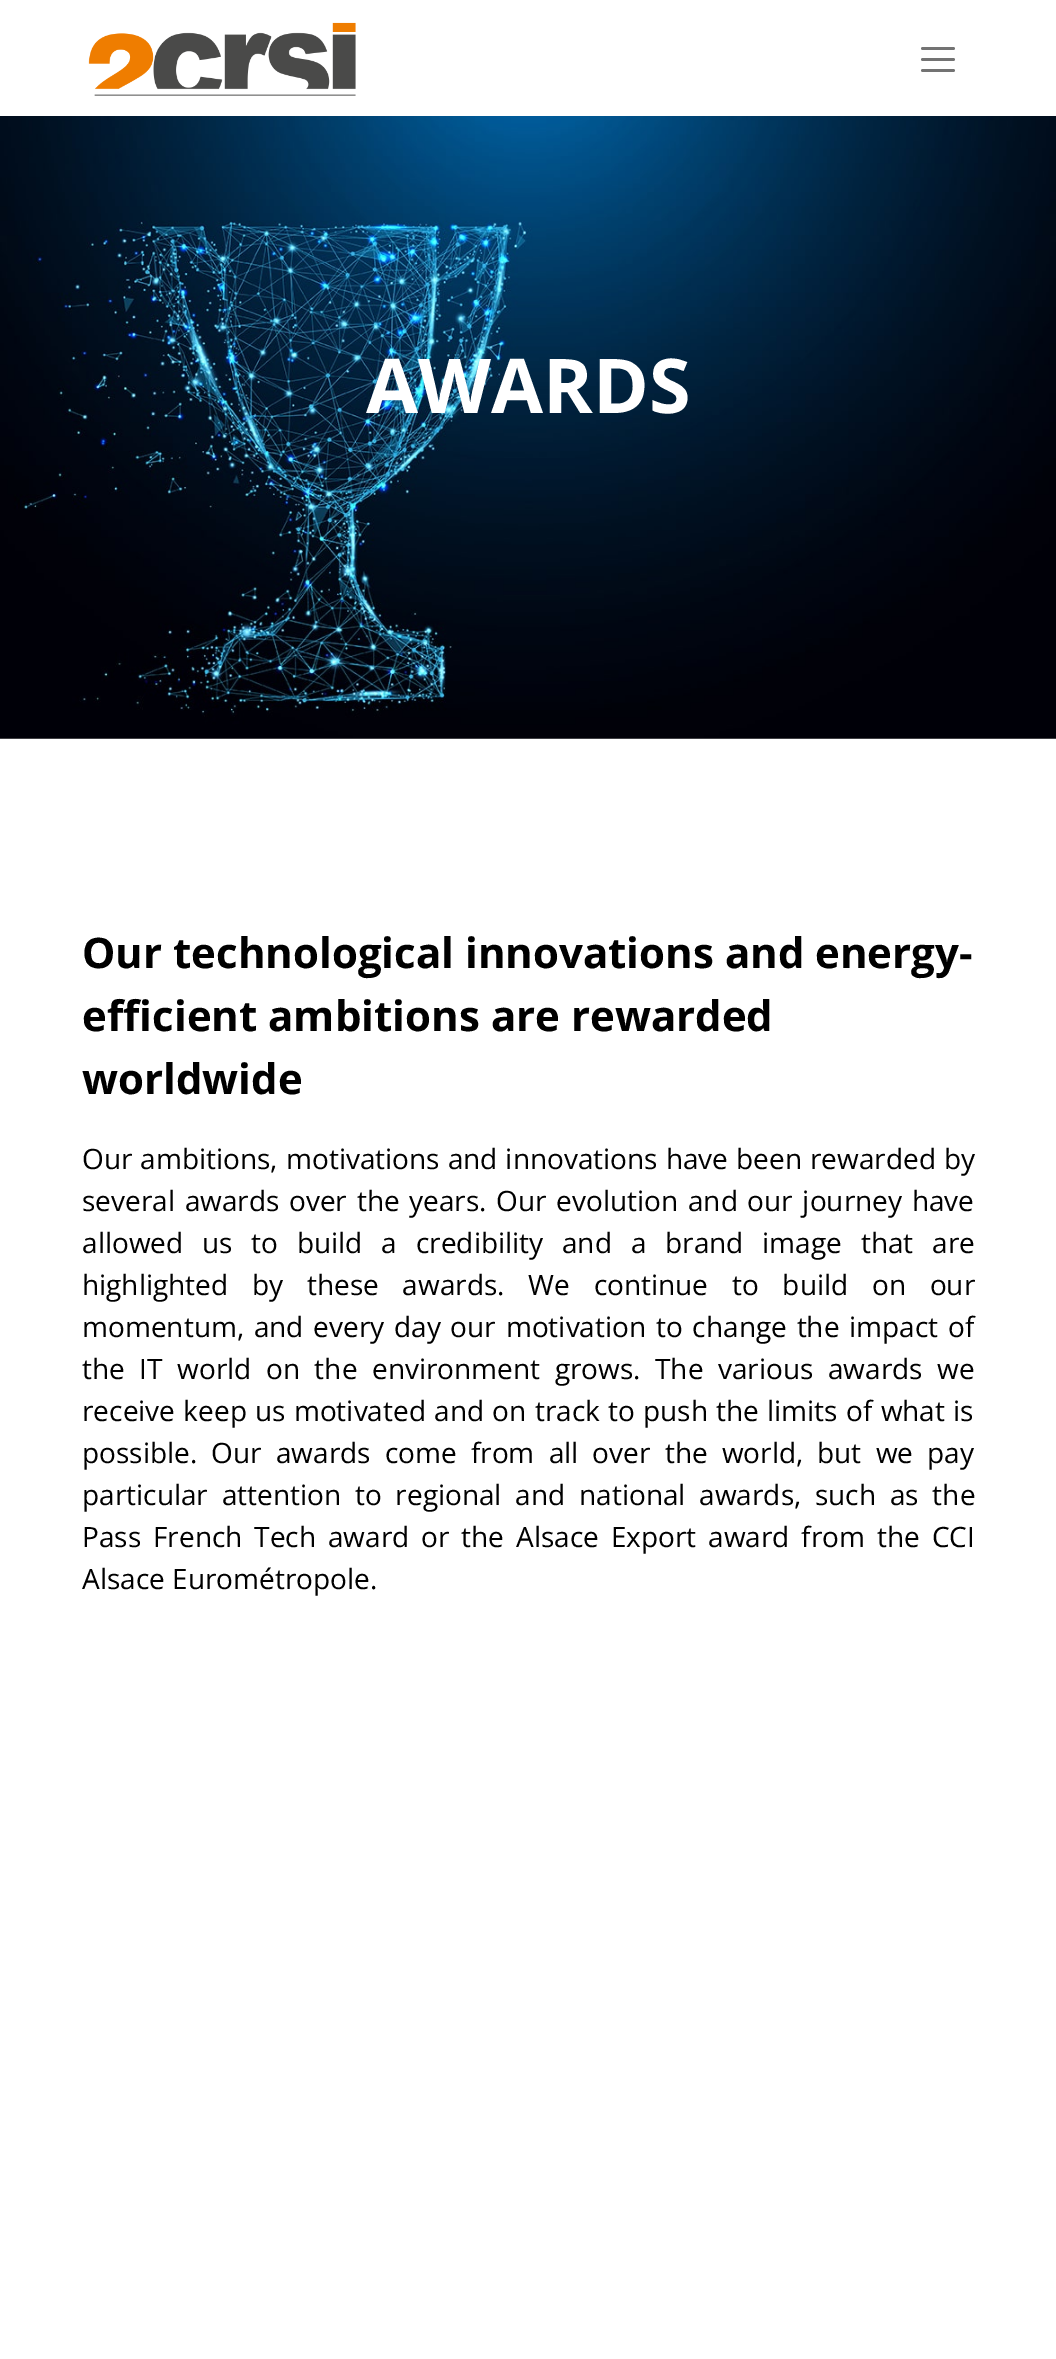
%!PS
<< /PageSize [1056 2359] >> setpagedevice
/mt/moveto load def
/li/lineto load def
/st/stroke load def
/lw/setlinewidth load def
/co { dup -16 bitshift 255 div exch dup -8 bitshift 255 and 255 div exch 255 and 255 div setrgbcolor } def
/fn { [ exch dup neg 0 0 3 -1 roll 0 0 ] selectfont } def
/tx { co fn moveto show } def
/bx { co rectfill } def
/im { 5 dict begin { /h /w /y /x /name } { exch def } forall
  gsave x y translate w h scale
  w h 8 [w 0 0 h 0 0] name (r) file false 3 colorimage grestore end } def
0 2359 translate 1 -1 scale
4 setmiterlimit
0 0 1056 2359 16#FFFFFF bx
(media/1.raw) 88 22 268 74 im
16#737373 co
2.8 lw
1 setlinecap
922.5 48.5 mt 953.5 48.5 li 922.5 59.5 mt 953.5 59.5 li 922.5 70.5 mt 953.5 70.5 li st
0 738 1056 1 16#808080 bx
(media/2.raw) 0 116 1056 623 im
(AWARDS) 366 413 /OpenSans-Bold 75.5 16#FFFFFF tx
(Our technological innovations and energy-) 82 968 /OpenSans-Bold 42 16#000000 tx
(efficient ambitions are rewarded) 82 1031 /OpenSans-Bold 42 16#000000 tx
(worldwide) 82 1094 /OpenSans-Bold 42 16#000000 tx
/OpenSans-Regular 28 fn
82 1169 mt .75 0 32 (Our ambitions, motivations and innovations have been rewarded by) widthshow
82 1211 mt 2.4 0 32 (several awards over the years. Our evolution and our journey have) widthshow
82 1253 mt 11.6 0 32 (allowed us to build a credibility and a brand image that are) widthshow
82 1295 mt 16.5 0 32 (highlighted by these awards. We continue to build on our) widthshow
82 1337 mt 2.5 0 32 (momentum, and every day our motivation to change the impact of) widthshow
82 1379 mt 7.25 0 32 (the IT world on the environment grows. The various awards we) widthshow
82 1421 mt 1 0 32 (receive keep us motivated and on track to push the limits of what is) widthshow
82 1463 mt 6.9 0 32 (possible. Our awards come from all over the world, but we pay) widthshow
82 1505 mt 6.5 0 32 (particular attention to regional and national awards, such as the) widthshow
82 1547 mt 4.6 0 32 (Pass French Tech award or the Alsace Export award from the CCI) widthshow
(Alsace Eurométropole.) 82 1589 /OpenSans-Regular 28 16#000000 tx
showpage
